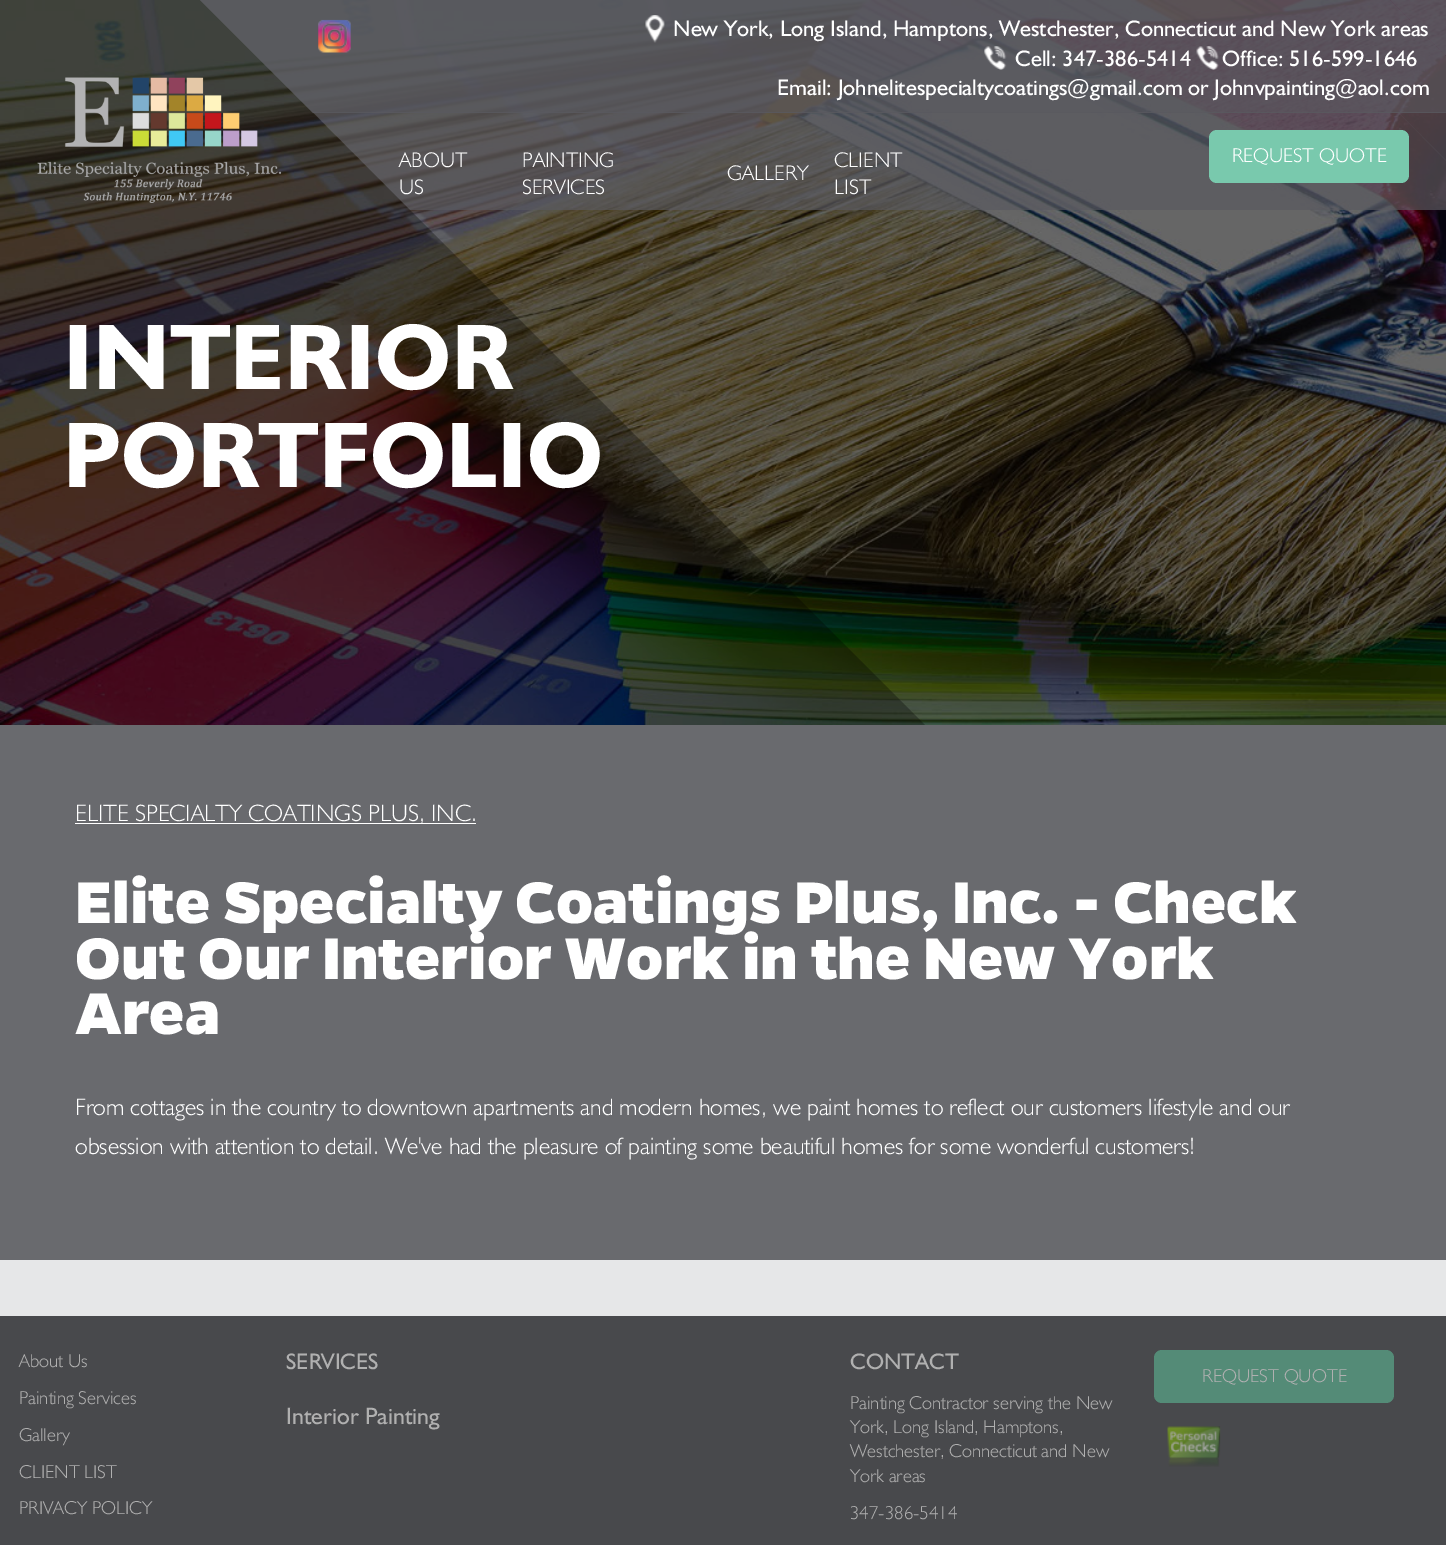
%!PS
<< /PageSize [1446 1545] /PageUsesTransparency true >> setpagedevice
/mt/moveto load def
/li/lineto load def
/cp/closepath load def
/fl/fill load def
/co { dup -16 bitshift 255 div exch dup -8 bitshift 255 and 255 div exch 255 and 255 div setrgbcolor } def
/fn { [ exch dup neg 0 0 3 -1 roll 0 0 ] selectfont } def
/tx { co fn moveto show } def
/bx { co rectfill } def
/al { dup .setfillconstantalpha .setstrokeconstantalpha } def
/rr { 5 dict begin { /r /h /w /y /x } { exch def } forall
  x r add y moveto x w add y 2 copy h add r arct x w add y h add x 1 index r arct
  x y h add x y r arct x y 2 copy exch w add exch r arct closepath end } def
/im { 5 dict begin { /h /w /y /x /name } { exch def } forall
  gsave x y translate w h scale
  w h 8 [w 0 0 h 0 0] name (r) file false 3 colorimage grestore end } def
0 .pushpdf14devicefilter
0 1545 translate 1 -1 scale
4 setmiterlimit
0 0 1446 1545 16#696A6E bx
(media/6.raw) 0 0 1446 725 im
0.69 al
16#59595F co
313 112 mt 1398 112 li 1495 210 li 410 210 li cp fl
1398 112 mt 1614 112 li 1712 210 li 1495 210 li cp fl
1 al
16#79C9AD co
1154 1350 240 53 8 rr fl
(media/7.raw) 1167 1426 54 41 im
(About Us) 19 1367 /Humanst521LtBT-Light 18.75 16#FFFFFF tx
(Painting Services) 19 1404 /Humanst521LtBT-Light 18.75 16#FFFFFF tx
(Gallery) 19 1441 /Humanst521LtBT-Light 18.75 16#FFFFFF tx
(CLIENT LIST) 19 1478 /Humanst521LtBT-Light 18.75 16#FFFFFF tx
(PRIVACY POLICY) 19 1514 /Humanst521LtBT-Light 18.75 16#FFFFFF tx
(SERVICES) 286 1369 /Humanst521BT-Regular 22.5 16#FFFFFF tx
(Interior Painting) 286 1424 /Humanst521BT-Regular 23.75 16#FFFFFF tx
(CONTACT) 850 1369 /Humanst521BT-Regular 22.5 16#FFFFFF tx
(Painting Contractor serving the New) 850 1409 /Humanst521LtBT-Light 18.75 16#FFFFFF tx
(York, Long Island, Hamptons,) 850 1433 /Humanst521LtBT-Light 18.75 16#FFFFFF tx
(Westchester, Connecticut and New) 850 1457 /Humanst521LtBT-Light 18.75 16#FFFFFF tx
(York areas) 850 1482 /Humanst521LtBT-Light 18.75 16#FFFFFF tx
(347-386-5414) 850 1519 /Humanst521LtBT-Light 18.75 16#FFFFFF tx
(REQUEST QUOTE) 1202 1382 /Humanst521LtBT-Light 18.75 16#FFFFFF tx
0.31 al
16#000000 co
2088 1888 mt -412 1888 li -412 -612 li cp fl
1 al
(LIST) 834 194 /Humanst521LtBT-Light 21.25 16#FFFFFF tx
(CLIENT) 834 167 /Humanst521LtBT-Light 21.25 16#FFFFFF tx
(GALLERY) 727 180 /Humanst521LtBT-Light 21.25 16#FFFFFF tx
(SERVICES) 522 194 /Humanst521LtBT-Light 21.25 16#FFFFFF tx
(PAINTING) 522 167 /Humanst521LtBT-Light 21.25 16#FFFFFF tx
(US) 399 194 /Humanst521LtBT-Light 21.25 16#FFFFFF tx
(ABOUT) 399 167 /Humanst521LtBT-Light 21.25 16#FFFFFF tx
0 725 1446 535 16#696A6E bx
(obsession with attention to detail. We've had the pleasure of painting some beautiful homes for some wonderful customers!) 75 1154 /Humanst521LtBT-Light 23.75 16#FFFFFF tx
(From cottages in the country to downtown apartments and modern homes, we paint homes to reflect our customers lifestyle and our) 75 1115 /Humanst521LtBT-Light 23.75 16#FFFFFF tx
(Area) 75 1034 /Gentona-ExtraBold 66.25 16#FFFFFF tx
(Out Our Interior Work in the New York) 75 979 /Gentona-ExtraBold 66.25 16#FFFFFF tx
(Elite Specialty Coatings Plus, Inc. - Check) 75 923 /Gentona-ExtraBold 66.25 16#FFFFFF tx
75 823 401 1 16#FFFFFF bx
(ELITE SPECIALTY COATINGS PLUS, INC.) 75 821 /Humanst521LtBT-Light 23.75 16#FFFFFF tx
0 1260 1446 56 16#E6E7E8 bx
(PORTFOLIO) 63 487 /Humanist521-Bold 93.75 16#FFFFFF tx
(INTERIOR) 63 389 /Humanist521-Bold 93.75 16#FFFFFF tx
0.85 al
16#59595F co
200 0 mt 1390 0 li 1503 113 li 313 113 li cp fl
1 al
(media/1.raw) 37 77 245 126 im
(Email: Johnelitespecialtycoatings@gmail.com or Johnvpainting@aol.com) 777 95 /Humanst521BT-Regular 22.5 16#FFFFFF tx
0.85 al
16#59595F co
1390 0 mt 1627 0 li 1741 113 li 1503 113 li cp fl
1 al
(Office: 516-599-1646) 1222 66 /Humanst521BT-Regular 22.5 16#FFFFFF tx
(media/5.raw) 1196 46 23 24 im
(Cell: 347-386-5414) 1015 66 /Humanst521BT-Regular 22.5 16#FFFFFF tx
(media/4.raw) 984 46 23 24 im
(New York, Long Island, Hamptons, Westchester, Connecticut and New York areas) 673 36 /Humanst521BT-Regular 22.5 16#FFFFFF tx
(media/3.raw) 645 15 20 28 im
(media/2.raw) 318 19 33 34 im
16#79C9AD co
1209 130 200 53 8 rr fl
(REQUEST QUOTE) 1232 162 /Humanst521LtBT-Light 20 16#FFFFFF tx
.poppdf14devicefilter showpage
